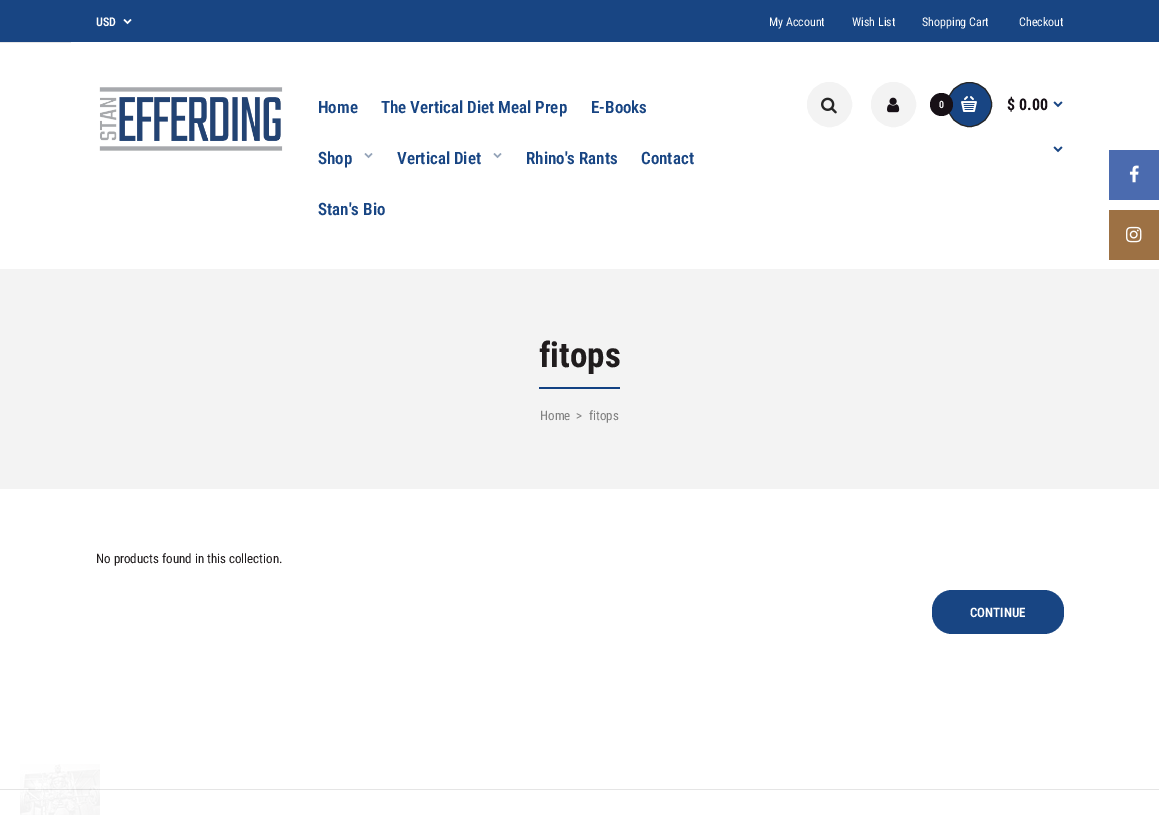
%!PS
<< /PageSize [1159 822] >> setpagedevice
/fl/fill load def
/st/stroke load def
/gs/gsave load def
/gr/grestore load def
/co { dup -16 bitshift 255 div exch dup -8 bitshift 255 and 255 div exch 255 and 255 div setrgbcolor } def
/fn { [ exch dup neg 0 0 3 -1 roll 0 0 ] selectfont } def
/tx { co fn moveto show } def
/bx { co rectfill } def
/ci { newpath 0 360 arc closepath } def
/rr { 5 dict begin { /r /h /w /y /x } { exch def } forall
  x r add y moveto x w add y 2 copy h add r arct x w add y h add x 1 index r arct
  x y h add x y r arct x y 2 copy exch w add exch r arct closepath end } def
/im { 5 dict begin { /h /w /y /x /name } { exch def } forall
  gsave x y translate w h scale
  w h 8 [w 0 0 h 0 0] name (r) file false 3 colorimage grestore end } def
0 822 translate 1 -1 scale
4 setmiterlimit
0 0 1159 822 16#FFFFFF bx
0 0 1159 42 16#184583 bx
(media/1.raw) 123 19 9 6 im
(media/2.raw) 99 87 184 64 im
0 42 71 1 16#E6E6E6 bx
(media/3.raw) 364 153 9 6 im
(media/3.raw) 493 153 9 6 im
16#F3F3F3 co
829.5 104.5 22 ci gs fl gr
st
(media/4.raw) 821 97 16 17 im
893.5 104.5 22 ci gs fl gr
st
(media/5.raw) 887 97 13 16 im
16#184583 co
969.5 104.5 22 ci gs fl gr
16#262626 co
st
16#171016 co
941.5 104.5 11.5 ci fl
(media/6.raw) 961 96 16 16 im
(media/7.raw) 1053 101 10 7 im
(media/7.raw) 1053 146 10 7 im
0 269 1159 220 16#F3F3F3 bx
539 387 81 2 16#124183 bx
16#184583 co
932 590 132 44 20 rr fl
0 789 1159 1 16#E5E5E5 bx
1109 150 50 50 16#4B6BAF bx
(media/8.raw) 1129 165 10 18 im
1109 210 50 50 16#9D7144 bx
(media/9.raw) 1126 226 16 17 im
(media/10.raw) 20 764 80 51 im
(USD) 96 26 /RobotoCondensed-SemiBold 12 16#FFFFFF tx
(My Account) 769 26 /RobotoCondensed-Regular 12 16#FFFFFF tx
(Wish List) 852 26 /RobotoCondensed-Regular 12 16#FFFFFF tx
(Shopping Cart) 922 26 /RobotoCondensed-Regular 12 16#FFFFFF tx
(Checkout) 1019 26 /RobotoCondensed-Regular 12 16#FFFFFF tx
(Home) 318 113 /RobotoCondensed-SemiBold 17 16#184583 tx
(The Vertical Diet Meal Prep) 381 113 /RobotoCondensed-SemiBold 17 16#184583 tx
(E-Books) 591 113 /RobotoCondensed-SemiBold 17 16#184583 tx
(Shop) 318 164 /RobotoCondensed-SemiBold 17 16#184583 tx
(Vertical Diet) 397 164 /RobotoCondensed-SemiBold 17 16#184583 tx
(Rhino's Rants) 526 164 /RobotoCondensed-SemiBold 17 16#184583 tx
(Contact) 641 164 /RobotoCondensed-SemiBold 17 16#184583 tx
(Stan's Bio) 318 215 /RobotoCondensed-SemiBold 17 16#184583 tx
(0) 939 108 /RobotoCondensed-SemiBold 10 16#FFFFFF tx
($ 0.00) 1007 110 /RobotoCondensed-Bold 16 16#171016 tx
(fitops) 539 367 /RobotoCondensed-Bold 35 16#201C1D tx
(Home) 540 420 /RobotoCondensed-Regular 13 16#808080 tx
(>) 576 420 /RobotoCondensed-Regular 13 16#808080 tx
(fitops) 589 420 /RobotoCondensed-Regular 13 16#808080 tx
(No products found in this collection.) 96 563 /RobotoCondensed-Regular 13 16#201C1D tx
(CONTINUE) 970 617 /RobotoCondensed-SemiBold 13 16#FFFFFF tx
showpage
